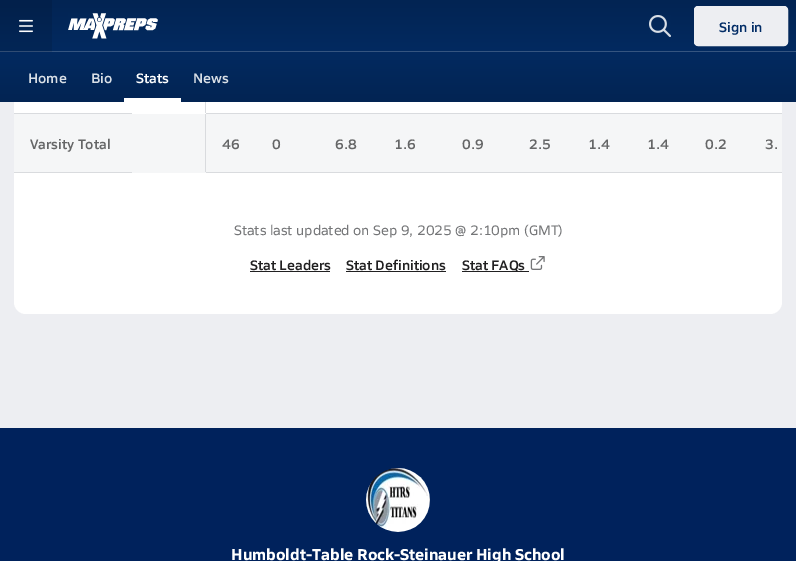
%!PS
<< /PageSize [796 561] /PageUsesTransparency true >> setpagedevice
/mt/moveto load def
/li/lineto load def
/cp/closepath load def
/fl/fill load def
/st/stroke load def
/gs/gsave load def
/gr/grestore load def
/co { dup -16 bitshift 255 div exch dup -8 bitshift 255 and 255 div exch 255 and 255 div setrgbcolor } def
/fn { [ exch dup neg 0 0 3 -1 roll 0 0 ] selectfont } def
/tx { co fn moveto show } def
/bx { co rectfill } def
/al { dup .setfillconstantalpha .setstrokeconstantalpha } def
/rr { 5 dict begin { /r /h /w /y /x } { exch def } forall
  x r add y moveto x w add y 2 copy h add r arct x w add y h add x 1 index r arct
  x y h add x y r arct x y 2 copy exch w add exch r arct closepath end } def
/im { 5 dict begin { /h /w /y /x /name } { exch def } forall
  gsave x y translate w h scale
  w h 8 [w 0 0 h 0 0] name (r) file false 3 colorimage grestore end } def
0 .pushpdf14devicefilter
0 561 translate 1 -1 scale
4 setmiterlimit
0 0 796 561 16#EDEEF2 bx
16#FFFFFF co
14 -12 768 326 12 rr fl
gs 0 0 mt 796 0 li 796 51 li 0 51 li cp clip newpath
<< /ShadingType 2 /ColorSpace /DeviceRGB /Coords [398 0 398 52] /Extend [true true] /Function << /FunctionType 2 /Domain [0 1] /C0 [.008 .141 .325] /C1 [.008 .165 .376] /N 1 >> >> shfill gr
0 51 796 1 16#355580 bx
0.1 al
0 0 52 52 16#000000 bx
1 al
(media/1.raw) 19 19 14 14 im
(media/2.raw) 68 13 90 26 im
(media/3.raw) 649 15 22 22 im
16#EDEEF2 co
694.5 6.5 93 39 3.5 rr gs fl gr
st
gs 0 52 mt 796 52 li 796 102 li 0 102 li cp clip newpath
<< /ShadingType 2 /ColorSpace /DeviceRGB /Coords [398 52 398 102] /Extend [true true] /Function << /FunctionType 2 /Domain [0 1] /C0 [.008 .165 .376] /C1 [.008 .141 .325] /N 1 >> >> shfill gr
124 98 57 4 16#FFFFFF bx
14 113 768 1 16#D9DBDE bx
132 113 74 1 16#FFFFFF bx
205 102 1 11 16#D9DBDE bx
14 172 768 1 16#D9DBDE bx
14 114 118 58 16#F5F6F7 bx
132 114 74 59 16#F5F6F7 bx
205 114 1 58 16#D9DBDE bx
206 114 576 58 16#F5F6F7 bx
250 271 80 1 16#212021 bx
346 271 100 1 16#212021 bx
462 271 67 1 16#212021 bx
(media/4.raw) 530 256 15 14 im
0 428 796 133 16#00225C bx
(media/5.raw) 366 468 64 64 im
(Sign in) 719 32 /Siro-SemiBold 14 16#022C66 tx
(Home) 28 83 /Siro-SemiBold 14 16#D9DFE6 tx
(Bio) 91 83 /Siro-SemiBold 14 16#D9DFE6 tx
(Stats) 136 83 /Siro-SemiBold 14 16#FFFFFF tx
(News) 193 83 /Siro-SemiBold 14 16#D9DFE6 tx
(Varsity Total) 30 149 /Siro-SemiBold 14 16#656667 tx
(46) 222 149 /Siro-SemiBold 14 16#656667 tx
(0) 272 149 /Siro-SemiBold 14 16#656667 tx
(6.8) 335 149 /Siro-SemiBold 14 16#656667 tx
(1.6) 394 149 /Siro-SemiBold 14 16#656667 tx
(0.9) 462 149 /Siro-SemiBold 14 16#656667 tx
(2.5) 529 149 /Siro-SemiBold 14 16#656667 tx
(1.4) 588 149 /Siro-SemiBold 14 16#656667 tx
(1.4) 647 149 /Siro-SemiBold 14 16#656667 tx
(0.2) 705 149 /Siro-SemiBold 14 16#656667 tx
(3.) 765 149 /Siro-SemiBold 14 16#656667 tx
(Stats last updated on Sep 9, 2025 @ 2:10pm \(GMT\)) 234 235 /Siro-Regular 14 16#757678 tx
(Stat Leaders) 250 270 /Siro-SemiBold 14 16#212021 tx
(Stat Definitions) 346 270 /Siro-SemiBold 14 16#212021 tx
(Stat FAQs) 462 270 /Siro-SemiBold 14 16#212021 tx
(Humboldt-Table Rock-Steinauer High School) 231 560 /Siro-Bold 16 16#FFFFFF tx
.poppdf14devicefilter showpage
